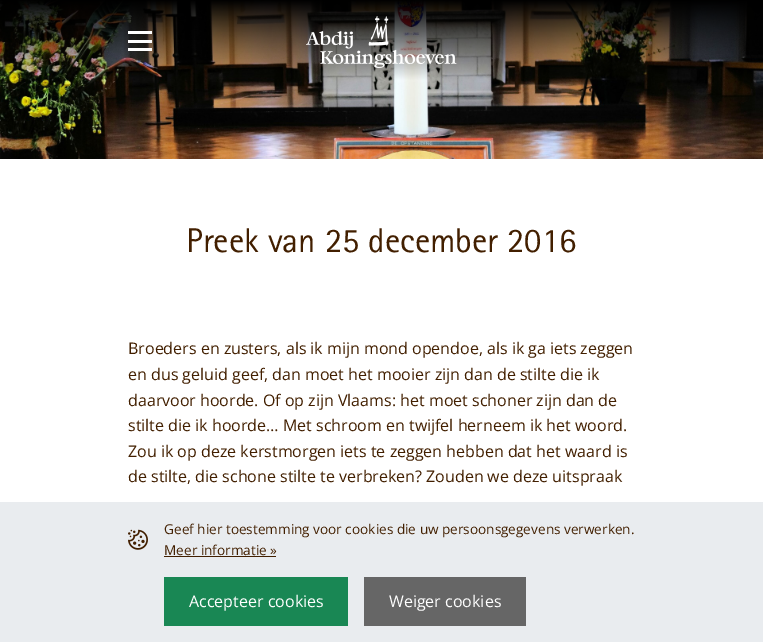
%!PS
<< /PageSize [763 642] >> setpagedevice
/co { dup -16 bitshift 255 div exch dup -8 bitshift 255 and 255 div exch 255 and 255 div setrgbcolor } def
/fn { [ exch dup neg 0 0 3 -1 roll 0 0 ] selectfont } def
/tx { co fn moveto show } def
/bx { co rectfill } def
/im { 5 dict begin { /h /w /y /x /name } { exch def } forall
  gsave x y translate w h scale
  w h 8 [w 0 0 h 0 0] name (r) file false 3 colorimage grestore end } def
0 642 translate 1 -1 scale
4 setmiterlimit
0 0 763 642 16#FFFFFF bx
(media/1.raw) 0 0 763 159 im
128 40 24 3 16#FFFFFF bx
128 31 24 3 16#FFFFFF bx
128 48 24 3 16#FFFFFF bx
(media/2.raw) 306 16 151 52 im
0 502 763 140 16#E9ECEF bx
(media/3.raw) 128 529 20 21 im
164 556 112 1 16#421F00 bx
164 577 184 49 16#198754 bx
364 577 162 49 16#666666 bx
(Preek van 25 december 2016) 186 252 /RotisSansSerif-Regular 34.5 16#421F00 tx
(Broeders en zusters, als ik mijn mond opendoe, als ik ga iets zeggen) 128 354 /OpenSans-Regular 16 16#421F00 tx
(en dus geluid geef, dan moet het mooier zijn dan de stilte die ik) 128 380 /OpenSans-Regular 16 16#421F00 tx
(daarvoor hoorde. Of op zijn Vlaams: het moet schoner zijn dan de) 128 406 /OpenSans-Regular 16 16#421F00 tx
(stilte die ik hoorde… Met schroom en twijfel herneem ik het woord.) 128 431 /OpenSans-Regular 16 16#421F00 tx
(Zou ik op deze kerstmorgen iets te zeggen hebben dat het waard is) 128 457 /OpenSans-Regular 16 16#421F00 tx
(de stilte, die schone stilte te verbreken? Zouden we deze uitspraak) 128 482 /OpenSans-Regular 16 16#421F00 tx
(Geef hier toestemming voor cookies die uw persoonsgegevens verwerken.) 164 534 /OpenSans-Regular 13.6 16#421F00 tx
(Meer informatie ») 164 555 /OpenSans-Regular 13.6 16#421F00 tx
(Accepteer cookies) 189 607 /OpenSans-Regular 16 16#FFFFFF tx
(Weiger cookies) 389 607 /OpenSans-Regular 16 16#FFFFFF tx
showpage
